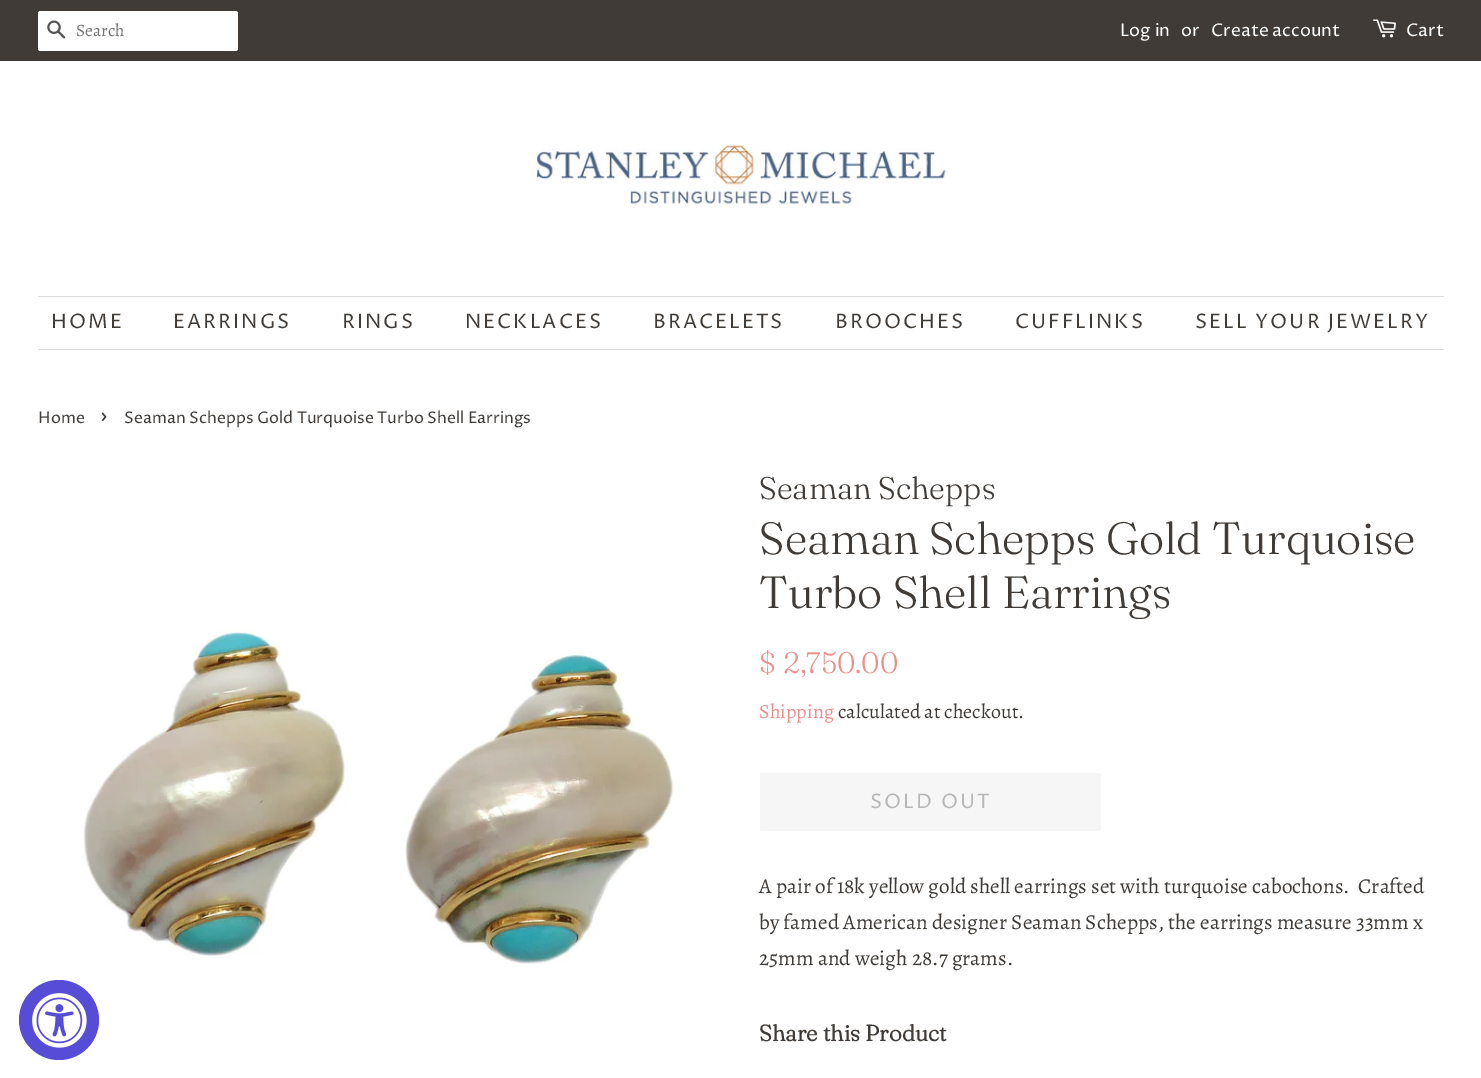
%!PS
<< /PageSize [1481 1078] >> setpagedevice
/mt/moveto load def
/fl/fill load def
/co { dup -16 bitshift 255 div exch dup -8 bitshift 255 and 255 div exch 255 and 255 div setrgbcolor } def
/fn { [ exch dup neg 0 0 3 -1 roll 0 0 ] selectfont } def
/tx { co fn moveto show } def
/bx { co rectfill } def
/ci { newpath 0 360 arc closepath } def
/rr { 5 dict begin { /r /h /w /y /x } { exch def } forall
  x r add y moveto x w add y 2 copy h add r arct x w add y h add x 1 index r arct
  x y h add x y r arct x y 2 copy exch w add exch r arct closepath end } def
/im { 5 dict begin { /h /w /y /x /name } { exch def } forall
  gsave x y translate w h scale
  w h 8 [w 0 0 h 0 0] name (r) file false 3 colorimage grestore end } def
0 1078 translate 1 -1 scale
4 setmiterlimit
0 0 1481 1078 16#FFFFFF bx
0 0 1481 61 16#403B37 bx
16#FFFFFF co
38 11 200 40 2.5 rr fl
(media/1.raw) 47 20 19 19 im
(media/2.raw) 1373 19 23 19 im
(media/3.raw) 535 144 411 64 im
38 296 1406 1 16#DDDDDD bx
38 349 1406 1 16#DDDDDD bx
(media/4.raw) 82 629 592 335 im
16#F6F6F6 co
760 773 341 58 2.5 rr fl
16#574CD5 co
59 1020 40 ci fl
(media/5.raw) 32 993 55 55 im
(Search) 76 36 /Alegreya-Regular 17.5 16#757575 tx
(Log in) 1120 36 /ProzaLibre-Regular 17.5 16#FFFFFF tx
(or) 1181 36 /ProzaLibre-Regular 17.5 16#FFFFFF tx
(Create account) 1211 36 /ProzaLibre-Regular 17.5 16#FFFFFF tx
(Cart) 1406 36 /ProzaLibre-Regular 17.5 16#FFFFFF tx
/ProzaLibre-Regular 20 fn
16#403B37 co
51 328 mt 2 0 (HOME) ashow
173 328 mt 2 0 (EARRINGS) ashow
342 328 mt 2 0 (RINGS) ashow
465 328 mt 2 0 (NECKLACES) ashow
653 328 mt 2 0 (BRACELETS) ashow
835 328 mt 2 0 (BROOCHES) ashow
1015 328 mt 2 0 (CUFFLINKS) ashow
1195 328 mt 2 0 (SELL YOUR JEWELRY) ashow
(Home) 38 423 /ProzaLibre-Regular 15.95 16#403B37 tx
(›) 100 423 /ProzaLibre-Regular 22 16#403B37 tx
(Seaman Schepps Gold Turquoise Turbo Shell Earrings) 124 423 /ProzaLibre-Regular 15.95 16#403B37 tx
(Seaman Schepps) 759 499 /Fraunces-Light 31.25 16#403B37 tx
(Seaman Schepps Gold Turquoise) 759 554 /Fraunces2-Light 45 16#403B37 tx
(Turbo Shell Earrings) 759 608 /Fraunces2-Light 45 16#403B37 tx
($ 2,750.00) 759 673 /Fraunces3-Light 29.75 16#E9918D tx
(Shipping) 759 718 /Alegreya-Regular 20 16#E9918D tx
(calculated at checkout.) 838 718 /Alegreya-Regular 20 16#403B37 tx
/ProzaLibre-Regular 20 fn
16#B6B6B6 co
870 808 mt 2 0 (SOLD OUT) ashow
(A pair of 18k yellow gold shell earrings set with turquoise cabochons.  Crafted) 759 893 /Alegreya-Regular 21.25 16#403B37 tx
(by famed American designer Seaman Schepps, the earrings measure 33mm x) 759 929 /Alegreya-Regular 21.25 16#403B37 tx
(25mm and weigh 28.7 grams.) 759 965 /Alegreya-Regular 21.25 16#403B37 tx
(Share this Product) 759 1041 /Fraunces-Bold 22.5 16#403B37 tx
showpage
